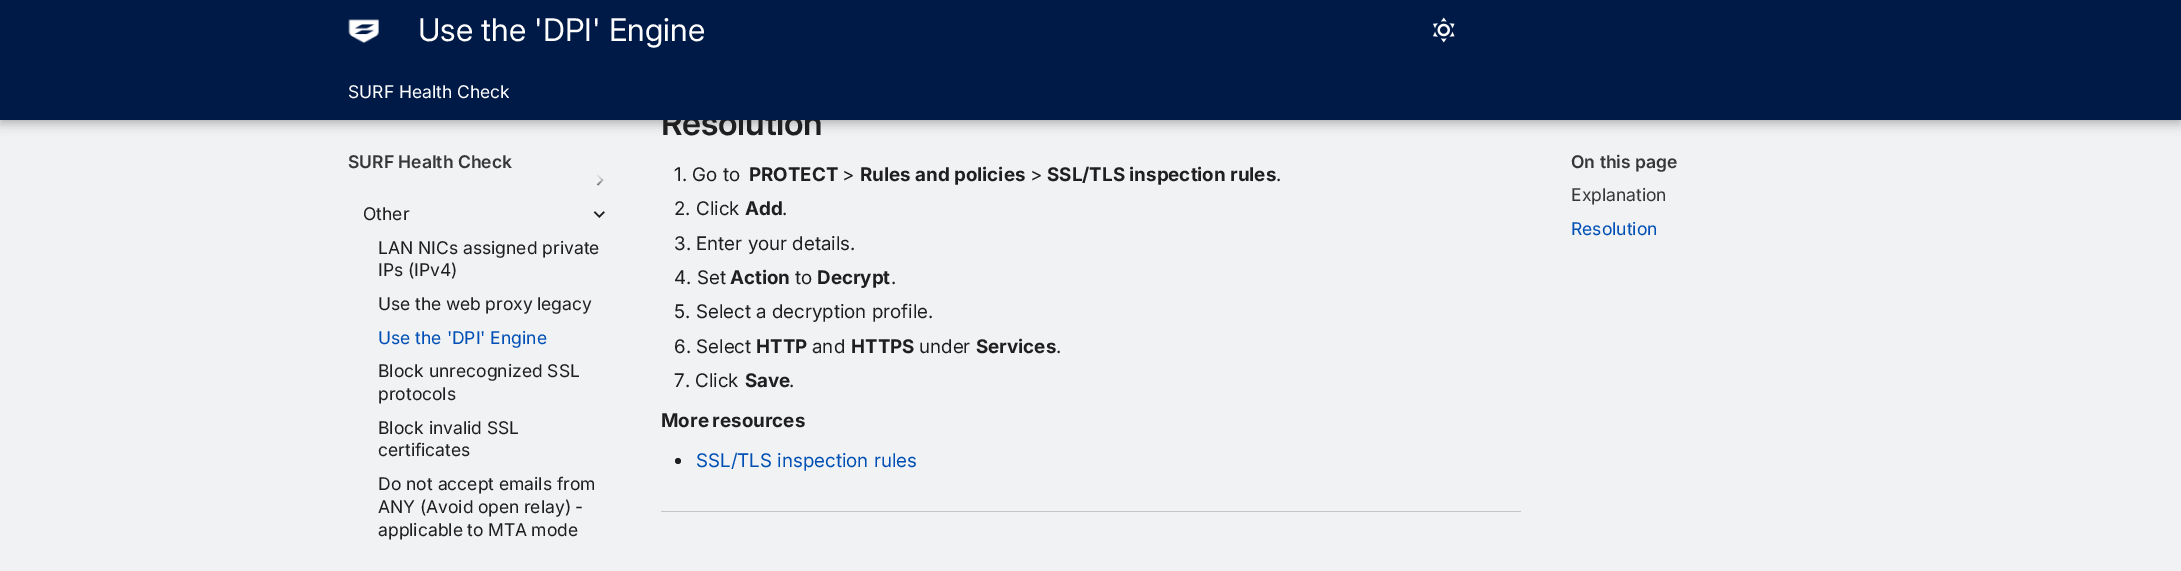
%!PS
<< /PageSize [2181 571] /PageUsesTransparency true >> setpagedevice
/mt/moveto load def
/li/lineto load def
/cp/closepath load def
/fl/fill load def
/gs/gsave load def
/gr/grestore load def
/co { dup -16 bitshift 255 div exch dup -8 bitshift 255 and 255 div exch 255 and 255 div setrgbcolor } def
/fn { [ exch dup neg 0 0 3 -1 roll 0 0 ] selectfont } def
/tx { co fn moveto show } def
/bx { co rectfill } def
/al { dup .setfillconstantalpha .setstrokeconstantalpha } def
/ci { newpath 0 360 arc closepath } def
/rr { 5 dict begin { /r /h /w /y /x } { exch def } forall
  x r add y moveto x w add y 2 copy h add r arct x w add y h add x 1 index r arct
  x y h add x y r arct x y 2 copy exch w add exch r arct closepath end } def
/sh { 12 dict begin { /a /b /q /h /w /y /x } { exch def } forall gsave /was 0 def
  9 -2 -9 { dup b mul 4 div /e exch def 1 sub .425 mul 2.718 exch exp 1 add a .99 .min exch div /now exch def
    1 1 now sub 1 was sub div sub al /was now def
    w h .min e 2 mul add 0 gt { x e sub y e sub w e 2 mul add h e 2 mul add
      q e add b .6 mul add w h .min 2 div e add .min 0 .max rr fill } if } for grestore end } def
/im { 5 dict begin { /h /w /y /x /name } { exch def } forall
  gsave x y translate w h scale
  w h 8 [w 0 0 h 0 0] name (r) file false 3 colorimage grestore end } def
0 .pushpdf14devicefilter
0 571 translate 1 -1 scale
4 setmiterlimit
0 0 2181 571 16#F0F2F4 bx
16#000000 co
0 5 2181 120 0 5 .2 sh
0 0 2181 120 0 2.5 .1 sh
(media/3.raw) 596 174 8 12 im
gs
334 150 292 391 rectclip
16#F0F2F4 co
339 140 282 43 0 5 1 sh
gr
(media/4.raw) 593 211 12 7 im
16#1F1F20 co
678 461 3 ci fl
661 511 860 1 16#C2C5CA bx
gs
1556 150 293 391 rectclip
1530 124 mt 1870 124 li 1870 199 li 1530 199 li cp 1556 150 mt 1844 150 li 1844 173 li 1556 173 li cp eoclip newpath
16#F0F2F4 co
1546 140 308 43 0 5 1 sh
gr
(SURF Health Check) 348 168 /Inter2-SemiBold 17.5 16#363738 tx
(Other) 363 220 /Inter2-Regular 17.5 16#1F1F20 tx
(LAN NICs assigned private) 378 254 /Inter2-Regular 17.5 16#1F1F20 tx
(IPs \(IPv4\)) 378 276 /Inter2-Regular 17.5 16#1F1F20 tx
378 310 mt -.5 0 32 (Use the web proxy legacy) widthshow
(Use the 'DPI' Engine) 378 344 /Inter2-Regular 17.5 16#004FB5 tx
(Block unrecognized SSL) 378 377 /Inter2-Regular 17.5 16#1F1F20 tx
(protocols) 378 400 /Inter2-Regular 17.5 16#1F1F20 tx
(Block invalid SSL) 378 434 /Inter2-Regular 17.5 16#1F1F20 tx
(certificates) 378 456 /Inter2-Regular 17.5 16#1F1F20 tx
(Do not accept emails from) 378 490 /Inter2-Regular 17.5 16#1F1F20 tx
378 513 mt -.5 0 32 (ANY \(Avoid open relay\) -) widthshow
378 536 mt -.5 0 32 (applicable to MTA mode) widthshow
/Inter-SemiBold 33.5 fn
661 135 mt -.25 0 (Resolution) ashow
0 0 2181 120 16#001A47 bx
(media/2.raw) 1433 17 22 26 im
(media/1.raw) 348 19 31 25 im
(SURF Health Check) 348 98 /Inter2-Regular 17.5 16#FFFFFF tx
(Use the 'DPI' Engine) 418 41 /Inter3-Regular 31.25 16#FFFFFF tx
(1. Go to) 674 181 /Inter-Regular 18.75 16#1F1F20 tx
(PROTECT) 749 181 /Inter-Bold 18.75 16#1F1F20 tx
(>) 842 181 /Inter-Regular 18.75 16#1F1F20 tx
(Rules and policies) 860 181 /Inter-Bold 18.75 16#1F1F20 tx
(>) 1030 181 /Inter-Regular 18.75 16#1F1F20 tx
(SSL/TLS inspection rules) 1047 181 /Inter-Bold 18.75 16#1F1F20 tx
(.) 1276 181 /Inter-Regular 18.75 16#1F1F20 tx
(2. Click) 674 215 /Inter-Regular 18.75 16#1F1F20 tx
(Add) 745 215 /Inter-Bold 18.75 16#1F1F20 tx
(.) 782 215 /Inter-Regular 18.75 16#1F1F20 tx
(3.) 674 250 /Inter-Regular 18.75 16#1F1F20 tx
(Enter your details.) 696 250 /Inter-Regular 18.75 16#1F1F20 tx
(4. Set) 674 284 /Inter-Regular 18.75 16#1F1F20 tx
(Action) 730 284 /Inter-Bold 18.75 16#1F1F20 tx
(to) 795 284 /Inter-Regular 18.75 16#1F1F20 tx
(Decrypt) 817 284 /Inter-Bold 18.75 16#1F1F20 tx
(.) 891 284 /Inter-Regular 18.75 16#1F1F20 tx
(5. Select a decryption profile.) 674 318 /Inter-Regular 18.75 16#1F1F20 tx
(6. Select) 674 353 /Inter-Regular 18.75 16#1F1F20 tx
(HTTP) 756 353 /Inter-Bold 18.75 16#1F1F20 tx
(and) 812 353 /Inter-Regular 18.75 16#1F1F20 tx
(HTTPS) 851 353 /Inter-Bold 18.75 16#1F1F20 tx
(under) 919 353 /Inter-Regular 18.75 16#1F1F20 tx
(Services) 976 353 /Inter-Bold 18.75 16#1F1F20 tx
(.) 1056 353 /Inter-Regular 18.75 16#1F1F20 tx
(7. Click) 674 387 /Inter-Regular 18.75 16#1F1F20 tx
(Save) 745 387 /Inter-Bold 18.75 16#1F1F20 tx
(.) 789 387 /Inter-Regular 18.75 16#1F1F20 tx
/Inter-Bold 18.75 fn
661 427 mt -1 0 32 (More resources) widthshow
(SSL/TLS inspection rules) 696 467 /Inter-Regular 18.75 16#004FB5 tx
(On this page) 1571 168 /Inter2-SemiBold 17.5 16#363738 tx
(Explanation) 1571 201 /Inter2-Regular 17.5 16#363738 tx
(Resolution) 1571 235 /Inter2-Regular 17.5 16#004FB5 tx
.poppdf14devicefilter showpage
